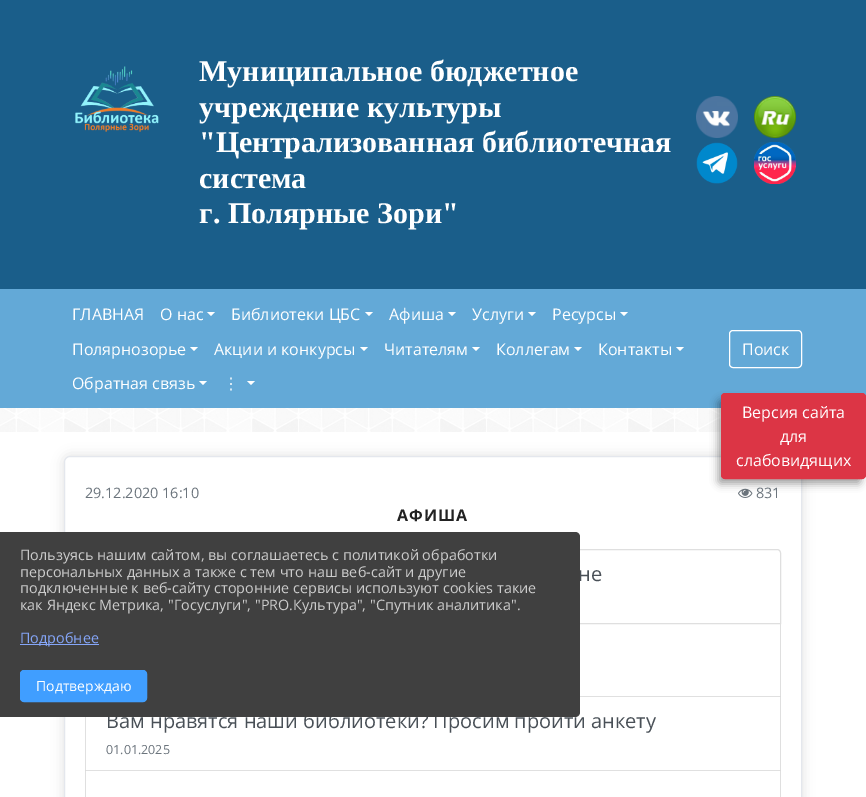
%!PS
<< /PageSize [866 797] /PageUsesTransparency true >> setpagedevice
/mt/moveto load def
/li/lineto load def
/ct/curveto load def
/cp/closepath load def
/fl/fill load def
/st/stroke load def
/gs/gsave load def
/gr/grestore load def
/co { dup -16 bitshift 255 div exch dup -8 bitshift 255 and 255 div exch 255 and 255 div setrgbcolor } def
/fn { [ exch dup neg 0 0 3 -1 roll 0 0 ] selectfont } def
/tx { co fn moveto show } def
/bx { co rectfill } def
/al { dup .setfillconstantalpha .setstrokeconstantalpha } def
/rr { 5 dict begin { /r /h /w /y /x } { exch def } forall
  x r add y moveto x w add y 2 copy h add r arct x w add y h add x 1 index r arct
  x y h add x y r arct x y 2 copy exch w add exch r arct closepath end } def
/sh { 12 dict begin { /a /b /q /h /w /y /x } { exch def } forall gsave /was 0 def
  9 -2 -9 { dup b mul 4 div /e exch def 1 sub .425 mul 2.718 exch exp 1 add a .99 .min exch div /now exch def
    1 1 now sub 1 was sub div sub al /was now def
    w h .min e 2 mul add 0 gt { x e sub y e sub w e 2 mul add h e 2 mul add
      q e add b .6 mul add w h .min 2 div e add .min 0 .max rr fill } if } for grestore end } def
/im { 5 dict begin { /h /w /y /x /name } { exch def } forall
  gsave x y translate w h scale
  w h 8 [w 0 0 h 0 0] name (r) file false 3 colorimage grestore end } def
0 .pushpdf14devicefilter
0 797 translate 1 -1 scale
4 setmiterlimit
0 0 866 797 16#FFFFFF bx
(media/1.raw) 0 408 721 24 im
0 0 866 289 16#1A5E8A bx
(media/2.raw) 75 66 84 66 im
(media/3.raw) 696 96 42 42 im
(media/4.raw) 754 96 42 42 im
(media/5.raw) 696 142 42 42 im
(media/6.raw) 754 142 42 42 im
0 289 866 119 16#63A9D7 bx
16#FFFFFF co
207 312 mt 215 312 li 211 316 li cp fl
365 312 mt 373 312 li 369 316 li cp fl
448 312 mt 456 312 li 452 316 li cp fl
528 312 mt 536 312 li 532 316 li cp fl
620 312 mt 628 312 li 624 316 li cp fl
190 347 mt 198 347 li 194 351 li cp fl
360 347 mt 368 347 li 364 351 li cp fl
472 347 mt 480 347 li 476 351 li cp fl
574 347 mt 582 347 li 578 351 li cp fl
676 347 mt 684 347 li 680 351 li cp fl
199 381 mt 207 381 li 203 385 li cp fl
247 381 mt 255 381 li 251 385 li cp fl
729.5 330.5 72 37 3.5 rr st
16#000000 co
64 456 738 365 6 6 .12 sh
16#FFFFFF co
64.5 456.5 737 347 5.5 rr gs fl gr
16#E4E7ED co
st
(media/7.raw) 738 488 15 10 im
16#DFDFDF co
89 549.5 mt 777 549.5 li 779 549.5 780.5 551 780.5 553 ct 780.5 623.5 li 85.5 623.5 li 85.5 553 li 85.5 551 87 549.5 89 549.5 ct cp st
781 624 mt 781 697 li 780 696 li 780 624 li cp fl
0.12 al
16#000000 co
781 697 mt 85 697 li 86 696 li 780 696 li cp fl
1 al
16#DFDFDF co
781 697 mt 781 771 li 780 770 li 780 697 li cp fl
0.12 al
16#000000 co
781 771 mt 85 771 li 86 770 li 780 770 li cp fl
85 771 mt 85 697 li 86 697 li 86 770 li cp fl
1 al
16#DFDFDF co
781 771 mt 781 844 li 780 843 li 780 771 li cp fl
85 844 mt 85 771 li 86 771 li 86 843 li cp fl
16#000000 co
718 400 143 84 3 4 .35 sh
16#DC3545 co
721.5 393.5 144 85 3.5 rr gs fl gr
st
(Муниципальное бюджетное) 199 81 /LiberationSerif-Bold 30 16#FFFFFF tx
(учреждение культуры) 199 117 /LiberationSerif-Bold 30 16#FFFFFF tx
("Централизованная библиотечная) 199 152 /LiberationSerif-Bold 30 16#FFFFFF tx
(система) 199 188 /LiberationSerif-Bold 30 16#FFFFFF tx
(г. Полярные Зори") 199 223 /LiberationSerif-Bold 30 16#FFFFFF tx
(ГЛАВНАЯ) 72 320 /OpenSans-Regular 16 16#FFFFFF tx
(О нас) 160 320 /OpenSans-Regular 16 16#FFFFFF tx
(Библиотеки ЦБС) 231 320 /OpenSans-Regular 16 16#FFFFFF tx
(Афиша) 389 320 /OpenSans-Regular 16 16#FFFFFF tx
(Услуги) 472 320 /OpenSans-Regular 16 16#FFFFFF tx
(Ресурсы) 552 320 /OpenSans-Regular 16 16#FFFFFF tx
(Полярнозорье) 72 355 /OpenSans-Regular 16 16#FFFFFF tx
(Акции и конкурсы) 214 355 /OpenSans-Regular 16 16#FFFFFF tx
(Читателям) 384 355 /OpenSans-Regular 16 16#FFFFFF tx
(Коллегам) 496 355 /OpenSans-Regular 16 16#FFFFFF tx
(Контакты) 598 355 /OpenSans-Regular 16 16#FFFFFF tx
(Обратная связь) 72 389 /OpenSans-Regular 16 16#FFFFFF tx
(⋮) 223 389 /DejaVuSans-Regular 16 16#FFFFFF tx
(Поиск) 742 355 /OpenSans-Regular 16 16#FFFFFF tx
(29.12.2020 16:10) 85 498 /OpenSans-Regular 14.4 16#6C757D tx
(831) 756 498 /OpenSans-Regular 14.4 16#6C757D tx
/OpenSans-Bold 16 fn
16#222222 co
397 521 mt 1 0 (АФИША) ashow
(не) 578 581 /OpenSans-Regular 20 16#495057 tx
(Вам нравятся наши библиотеки? Просим пройти анкету) 106 728 /OpenSans-Regular 20 16#495057 tx
(01.01.2025) 106 754 /OpenSans-Regular 12.5 16#6C757D tx
(Версия сайта) 742 418 /OpenSans-Regular 16 16#FFFFFF tx
(для) 780 442 /OpenSans-Regular 16 16#FFFFFF tx
(слабовидящих) 736 466 /OpenSans-Regular 16 16#FFFFFF tx
16#404040 co
0 532 mt 575 532 li 578 532 580 534 580 537 ct 580 712 li 580 715 578 717 575 717 ct 0 717 li cp fl
(Пользуясь нашим сайтом, вы соглашаетесь с политикой обработки) 20 560 /OpenSans-Regular 14.4 16#CCCCCC tx
(персональных данных а также с тем что наш веб-сайт и другие) 20 577 /OpenSans-Regular 14.4 16#CCCCCC tx
(подключенные к веб-сайту сторонние сервисы используют cookies такие) 20 593 /OpenSans-Regular 14.4 16#CCCCCC tx
(как Яндекс Метрика, "Госуслуги", "PRO.Культура", "Спутник аналитика".) 20 610 /OpenSans-Regular 14.4 16#CCCCCC tx
20 644 79 1 16#85A6F9 bx
(Подробнее) 20 643 /OpenSans-Regular 14.4 16#85A6F9 tx
16#409EFF co
20.5 670.5 126 31 3.5 rr gs fl gr
st
(Подтверждаю) 36 691 /OpenSans-Regular 14 16#FFFFFF tx
.poppdf14devicefilter showpage
